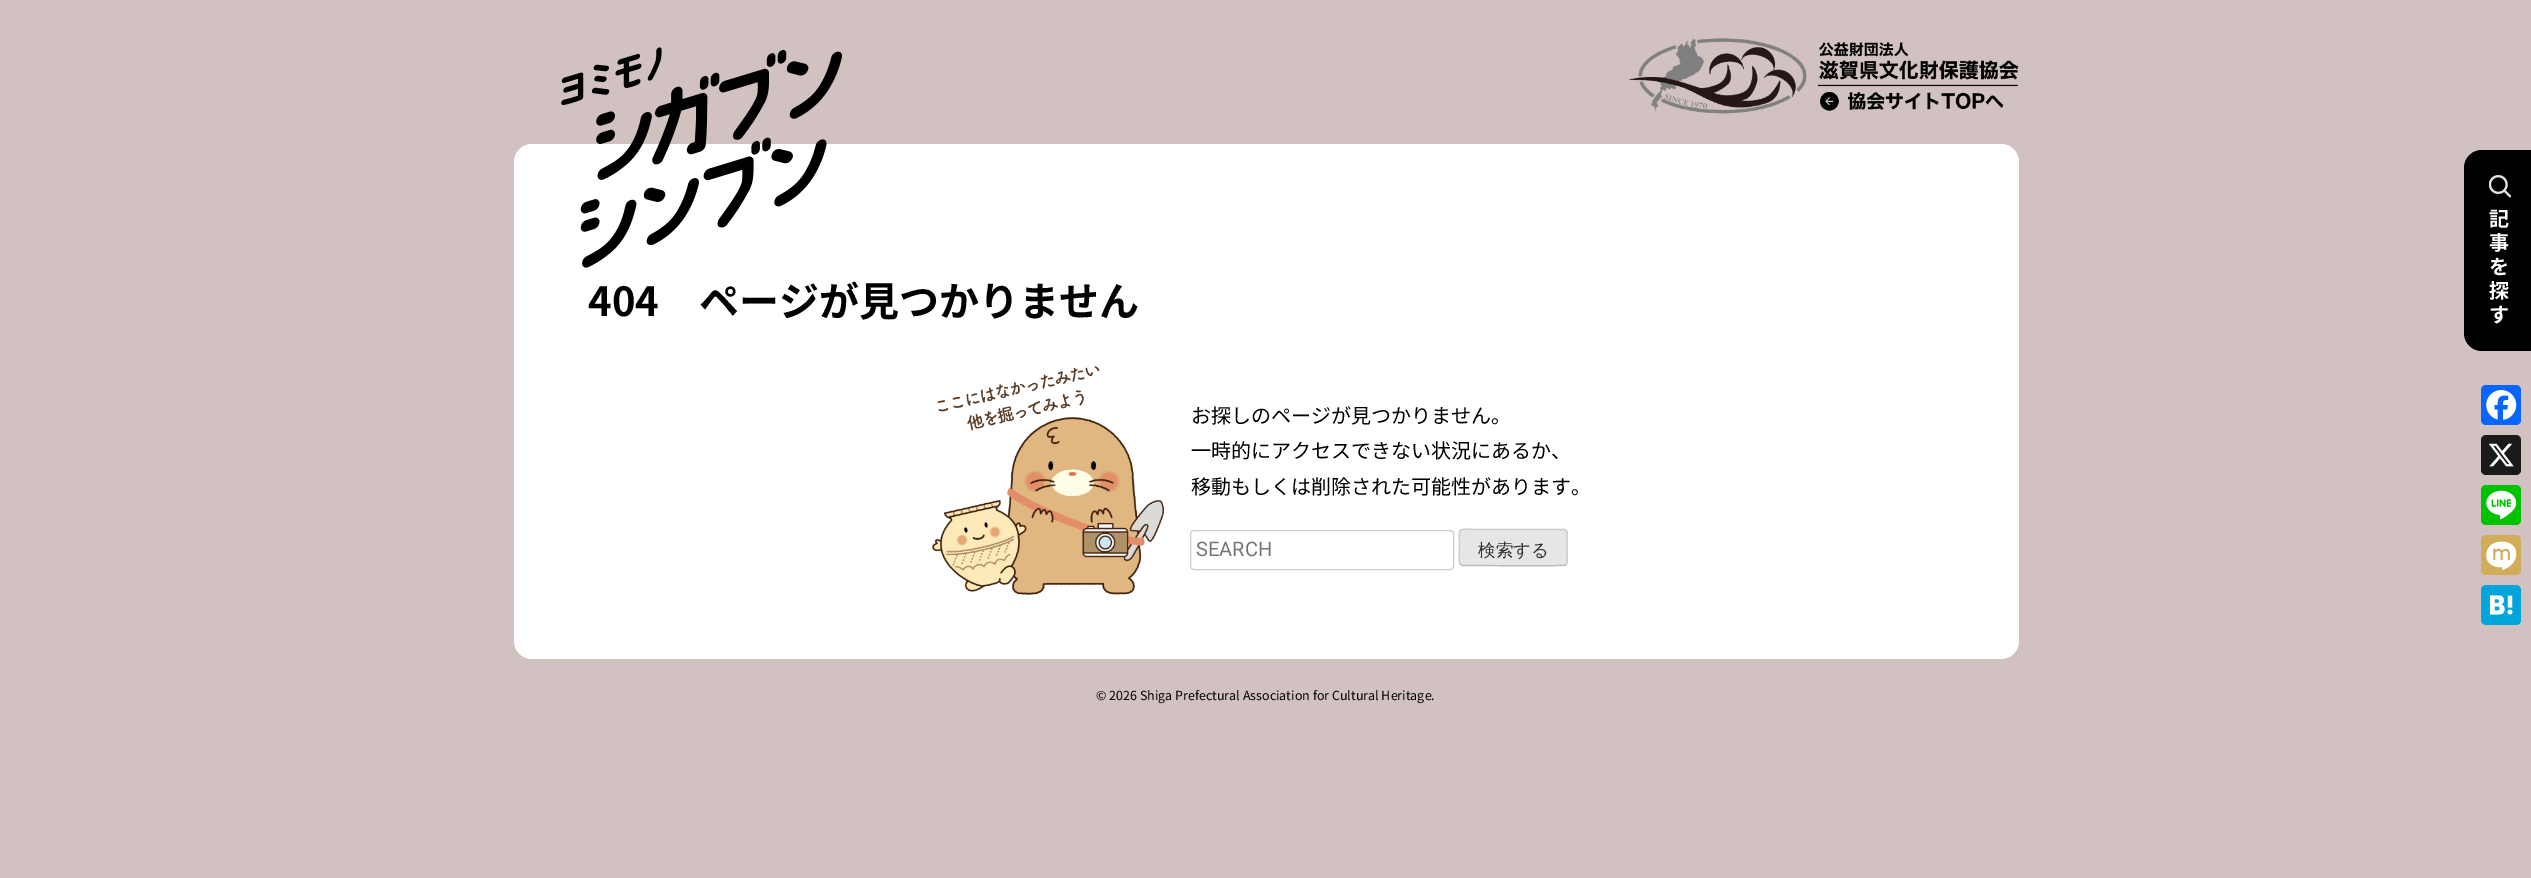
%!PS
<< /PageSize [2531 878] >> setpagedevice
/mt/moveto load def
/li/lineto load def
/ct/curveto load def
/cp/closepath load def
/fl/fill load def
/st/stroke load def
/lw/setlinewidth load def
/co { dup -16 bitshift 255 div exch dup -8 bitshift 255 and 255 div exch 255 and 255 div setrgbcolor } def
/fn { [ exch dup neg 0 0 3 -1 roll 0 0 ] selectfont } def
/tx { co fn moveto show } def
/bx { co rectfill } def
/rr { 5 dict begin { /r /h /w /y /x } { exch def } forall
  x r add y moveto x w add y 2 copy h add r arct x w add y h add x 1 index r arct
  x y h add x y r arct x y 2 copy exch w add exch r arct closepath end } def
/im { 5 dict begin { /h /w /y /x /name } { exch def } forall
  gsave x y translate w h scale
  w h 8 [w 0 0 h 0 0] name (r) file false 3 colorimage grestore end } def
0 878 translate 1 -1 scale
4 setmiterlimit
0 0 2531 878 16#D1C1C1 bx
16#FFFFFF co
514 144 1505 515 18 rr fl
(media/1.raw) 561 47 281 221 im
(media/2.raw) 1629 37 390 77 im
16#000000 co
2482 150 mt 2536 150 li 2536 351 li 2482 351 li 2472 351 2464 343 2464 333 ct 2464 168 li 2464 158 2472 150 2482 150 ct cp fl
(media/3.raw) 2489 175 22 23 im
(media/4.raw) 932 366 232 229 im
16#CCCCCC co
1190.5 530.5 263 39 3.5 rr st
16#E6E6E6 co
1459 529 109 37 4 rr fl
16#BBBBBB co
1.2 lw
1566 564.5 mt 1565.5 565 li 1563 566.5 1488.5 565.5 1479.5 565.5 ct 1462.5 565.5 li 1460.5 564.5 li st
16#CCCCCC co
1460.5 564.5 mt 1458 562.5 1459.5 550.5 1459.5 547.5 ct 1459.5 525.5 1455.5 529.5 1479.5 529.5 ct 1564 529.5 li 1568 529.5 1567 535 1567 537.5 ct 1567 552.5 li 1567 555 1568 562.5 1566 564.5 ct st
16#0866FF co
2481 385 40 40 5 rr fl
(media/5.raw) 2486 390 31 30 im
16#1A1A1A co
2481 435 40 40 5 rr fl
(media/6.raw) 2488 443 26 24 im
16#00C300 co
2481 485 40 40 5 rr fl
(media/7.raw) 2486 490 31 30 im
16#D1AD5A co
2481 535 40 40 5 rr fl
(media/8.raw) 2486 541 31 29 im
16#00A6DB co
2481 585 40 40 5 rr fl
(media/9.raw) 2489 595 24 20 im
(記) 2489 226 /NotoSansJP-Bold 20 16#FFFFFF tx
(事) 2489 250 /NotoSansJP-Bold 20 16#FFFFFF tx
(を) 2489 274 /NotoSansJP-Bold 20 16#FFFFFF tx
(探) 2489 298 /NotoSansJP-Bold 20 16#FFFFFF tx
(す) 2489 322 /NotoSansJP-Bold 20 16#FFFFFF tx
(404　ページが見つかりません) 588 316 /NotoSansJP-Bold 40 16#000000 tx
(お探しのページが見つかりません。) 1191 423 /NotoSansJP-Regular 20 16#000000 tx
(一時的にアクセスできない状況にあるか、) 1191 458 /NotoSansJP-Regular 20 16#000000 tx
(移動もしくは削除された可能性があります。) 1191 494 /NotoSansJP-Regular 20 16#000000 tx
(SEARCH) 1196 556 /Roboto-Regular 20 16#757575 tx
(検索する) 1478 556 /WenQuanYiZenHei-Medium 17.5 16#2E2E2E tx
(© 2026 Shiga Prefectural Association for Cultural Heritage.) 1096 700 /NotoSansJP-Regular 12.5 16#000000 tx
showpage
